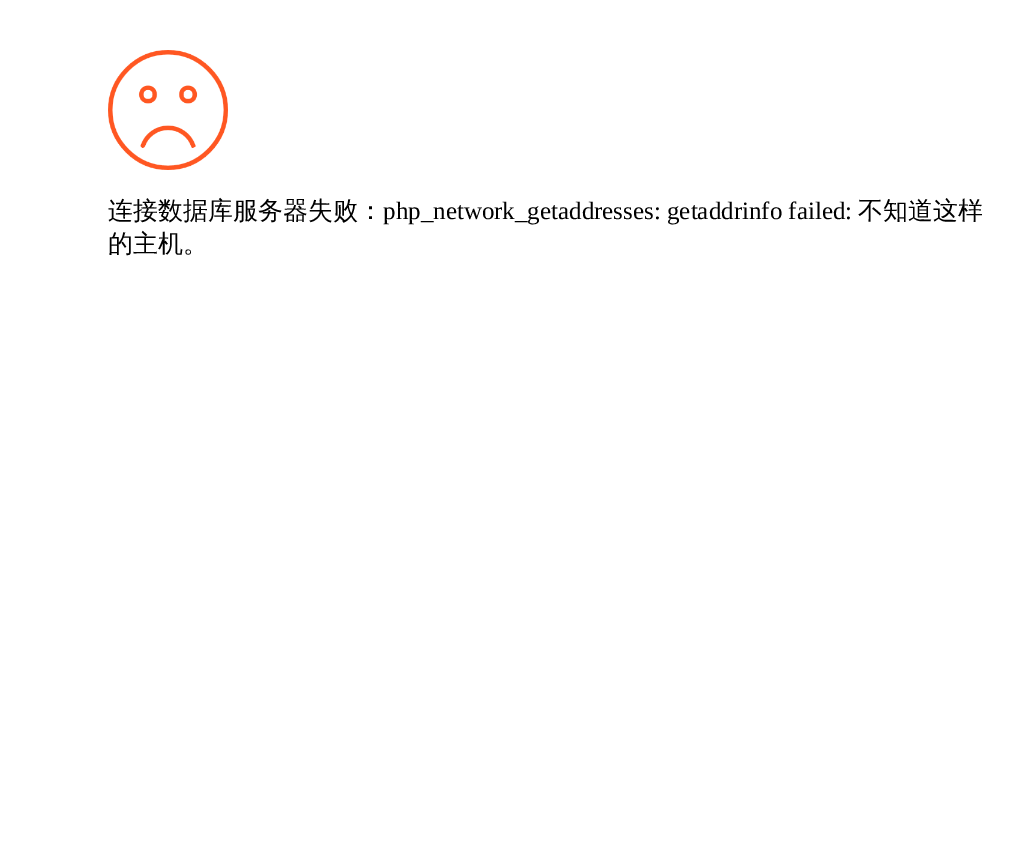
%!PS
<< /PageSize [1015 851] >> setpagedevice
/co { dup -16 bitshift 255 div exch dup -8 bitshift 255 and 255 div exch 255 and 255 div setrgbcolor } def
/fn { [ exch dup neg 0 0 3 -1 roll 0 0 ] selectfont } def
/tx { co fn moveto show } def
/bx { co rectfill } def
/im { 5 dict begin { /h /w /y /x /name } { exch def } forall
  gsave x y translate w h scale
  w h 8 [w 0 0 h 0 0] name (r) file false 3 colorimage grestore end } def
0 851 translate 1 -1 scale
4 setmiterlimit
0 0 1015 851 16#FFFFFF bx
(media/1.raw) 108 50 120 120 im
(连接数据库服务器失败：) 108 219 /WenQuanYiZenHei-Medium 25 16#000000 tx
(php_network_getaddresses: getaddrinfo failed:) 383 219 /LiberationSerif-Regular 25 16#000000 tx
(不知道这样) 858 219 /WenQuanYiZenHei-Medium 25 16#000000 tx
(的主机。) 108 252 /WenQuanYiZenHei-Medium 25 16#000000 tx
showpage
